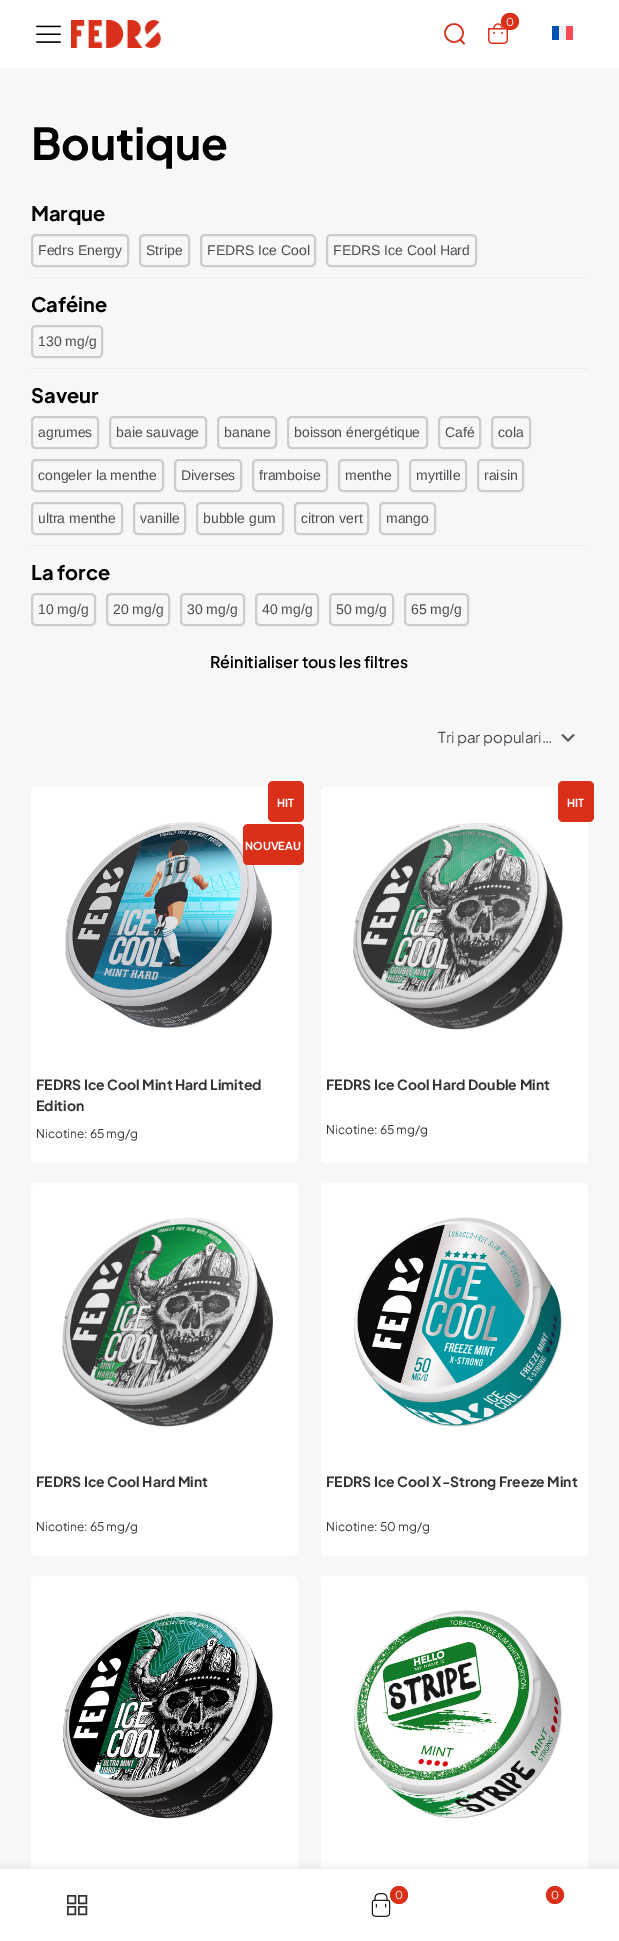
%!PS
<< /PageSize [619 1941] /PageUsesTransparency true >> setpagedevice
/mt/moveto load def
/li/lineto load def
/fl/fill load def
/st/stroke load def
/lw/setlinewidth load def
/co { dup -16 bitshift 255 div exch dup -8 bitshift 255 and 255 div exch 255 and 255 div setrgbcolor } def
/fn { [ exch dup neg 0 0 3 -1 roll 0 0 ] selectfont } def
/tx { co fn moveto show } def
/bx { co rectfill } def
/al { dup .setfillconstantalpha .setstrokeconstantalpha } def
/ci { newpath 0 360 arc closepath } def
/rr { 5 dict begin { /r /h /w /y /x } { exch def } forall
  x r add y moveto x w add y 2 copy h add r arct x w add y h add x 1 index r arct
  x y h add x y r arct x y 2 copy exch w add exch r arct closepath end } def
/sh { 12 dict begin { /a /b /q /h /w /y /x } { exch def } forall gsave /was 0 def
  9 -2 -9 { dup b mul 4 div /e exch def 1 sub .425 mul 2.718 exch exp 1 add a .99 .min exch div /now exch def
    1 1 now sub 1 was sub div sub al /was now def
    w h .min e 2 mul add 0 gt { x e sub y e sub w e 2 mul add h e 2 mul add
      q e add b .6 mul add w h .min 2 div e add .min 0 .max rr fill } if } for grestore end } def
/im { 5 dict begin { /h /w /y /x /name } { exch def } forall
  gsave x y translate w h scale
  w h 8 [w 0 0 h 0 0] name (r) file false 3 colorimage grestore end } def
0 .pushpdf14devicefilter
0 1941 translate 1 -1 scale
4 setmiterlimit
0 0 619 1941 16#F7F7F7 bx
0 0 619 68 16#FFFFFF bx
(media/1.raw) 36 25 25 18 im
(media/2.raw) 71 20 90 28 im
(media/3.raw) 488 23 20 21 im
16#DA301A co
501 13 18 17 8.5 rr fl
1.5 lw
454 33 9 ci st
460 39.5 mt 464.5 44 li st
559 26 7 14 16#F0F0F0 bx
566 26 7 14 16#FF4B55 bx
552 26 7 14 16#0052B4 bx
31 277 557 1 16#EDEDED bx
16#CCCCCC co
2 lw
32 235 96 31 4 rr st
140 235 49 31 4 rr st
201 235 114 31 4 rr st
327 235 149 31 4 rr st
31 368 557 1 16#EDEDED bx
16#CCCCCC co
32 326 70 31 4 rr st
31 545 557 1 16#EDEDED bx
16#CCCCCC co
32 417 66 31 4 rr st
110 417 96 31 4 rr st
218 417 58 31 4 rr st
288 417 139 31 4 rr st
439 417 41 31 4 rr st
492 417 38 31 4 rr st
32 460 131 31 4 rr st
175 460 66 31 4 rr st
253 460 74 31 4 rr st
339 460 59 31 4 rr st
410 460 56 31 4 rr st
478 460 45 31 4 rr st
32 503 90 31 4 rr st
134 503 51 31 4 rr st
197 503 86 31 4 rr st
295 503 73 31 4 rr st
380 503 55 31 4 rr st
32 594 63 31 4 rr st
107 594 62 31 4 rr st
181 594 63 31 4 rr st
256 594 62 31 4 rr st
330 594 63 31 4 rr st
405 594 63 31 4 rr st
(media/4.raw) 561 734 14 8 im
16#FFFFFF co
31 787 267 376 5 rr fl
16#DA301A co
268 781 36 41 5 rr fl
(media/5.raw) 65 822 207 206 im
243 824 61 41 5 rr fl
16#FFFFFF co
321 787 267 376 5 rr fl
16#DA301A co
558 781 36 41 5 rr fl
(media/6.raw) 353 822 210 208 im
16#FFFFFF co
31 1183 267 373 5 rr fl
(media/7.raw) 62 1217 212 210 im
321 1183 267 373 5 rr fl
(media/8.raw) 354 1217 208 210 im
31 1576 267 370 5 rr fl
(media/9.raw) 63 1611 210 208 im
321 1576 267 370 5 rr fl
(media/10.raw) 354 1610 208 209 im
16#000000 co
0 1869 619 72 0 5 .1 sh
0 1869 619 72 16#FFFFFF bx
16#333333 co
1.5 lw
78.75 1895.75 7.5 7.5 rectstroke
67.75 1895.75 7.5 7.5 rectstroke
67.75 1906.75 7.5 7.5 rectstroke
78.75 1906.75 7.5 7.5 rectstroke
(media/11.raw) 371 1893 20 24 im
16#DA301A co
399 1895 9 ci fl
555 1895 9 ci fl
(0) 506 26 /PlusJakartaSans-Regular 11 16#FFFFFF tx
(Boutique) 31 160 /PlusJakartaSans-Bold 44 16#000000 tx
(Marque) 31 221 /PlusJakartaSans-Bold 20 16#000000 tx
(Fedrs Energy) 38 255 /LiberationSans-Regular 14 16#4C4D52 tx
(Stripe) 146 255 /LiberationSans-Regular 14 16#4C4D52 tx
(FEDRS Ice Cool) 207 255 /LiberationSans-Regular 14 16#4C4D52 tx
(FEDRS Ice Cool Hard) 333 255 /LiberationSans-Regular 14 16#4C4D52 tx
(Caféine) 31 312 /PlusJakartaSans-Bold 20 16#000000 tx
(130 mg/g) 38 346 /LiberationSans-Regular 14 16#4C4D52 tx
(Saveur) 31 403 /PlusJakartaSans-Bold 20 16#000000 tx
(agrumes) 38 437 /LiberationSans-Regular 14 16#4C4D52 tx
(baie sauvage) 116 437 /LiberationSans-Regular 14 16#4C4D52 tx
(banane) 224 437 /LiberationSans-Regular 14 16#4C4D52 tx
(boisson énergétique) 294 437 /LiberationSans-Regular 14 16#4C4D52 tx
(Café) 445 437 /LiberationSans-Regular 14 16#4C4D52 tx
(cola) 498 437 /LiberationSans-Regular 14 16#4C4D52 tx
(congeler la menthe) 38 480 /LiberationSans-Regular 14 16#4C4D52 tx
(Diverses) 181 480 /LiberationSans-Regular 14 16#4C4D52 tx
(framboise) 259 480 /LiberationSans-Regular 14 16#4C4D52 tx
(menthe) 345 480 /LiberationSans-Regular 14 16#4C4D52 tx
(myrtille) 416 480 /LiberationSans-Regular 14 16#4C4D52 tx
(raisin) 484 480 /LiberationSans-Regular 14 16#4C4D52 tx
(ultra menthe) 38 523 /LiberationSans-Regular 14 16#4C4D52 tx
(vanille) 140 523 /LiberationSans-Regular 14 16#4C4D52 tx
(bubble gum) 203 523 /LiberationSans-Regular 14 16#4C4D52 tx
(citron vert) 301 523 /LiberationSans-Regular 14 16#4C4D52 tx
(mango) 386 523 /LiberationSans-Regular 14 16#4C4D52 tx
(La force) 31 580 /PlusJakartaSans-Bold 20 16#000000 tx
(10 mg/g) 38 614 /LiberationSans-Regular 14 16#4C4D52 tx
(20 mg/g) 113 614 /LiberationSans-Regular 14 16#4C4D52 tx
(30 mg/g) 187 614 /LiberationSans-Regular 14 16#4C4D52 tx
(40 mg/g) 262 614 /LiberationSans-Regular 14 16#4C4D52 tx
(50 mg/g) 336 614 /LiberationSans-Regular 14 16#4C4D52 tx
(65 mg/g) 411 614 /LiberationSans-Regular 14 16#4C4D52 tx
(Réinitialiser tous les filtres) 210 668 /PlusJakartaSans-SemiBold 16 16#000000 tx
(Tri par populari…) 438 743 /PlusJakartaSans-Regular 15 16#4C4D52 tx
(HIT) 277 807 /PlusJakartaSans-Bold 11 16#FFFFFF tx
(NOUVEAU) 245 850 /PlusJakartaSans-Bold 11 16#FFFFFF tx
(FEDRS Ice Cool Mint Hard Limited) 36 1090 /PlusJakartaSans-Bold 14 16#333333 tx
(Edition) 36 1111 /PlusJakartaSans-Bold 14 16#333333 tx
(Nicotine: 65 mg/g) 36 1138 /PlusJakartaSans-Regular 12 16#333333 tx
(HIT) 567 807 /PlusJakartaSans-Bold 11 16#FFFFFF tx
(FEDRS Ice Cool Hard Double Mint) 326 1090 /PlusJakartaSans-Bold 14 16#333333 tx
(Nicotine: 65 mg/g) 326 1134 /PlusJakartaSans-Regular 12 16#333333 tx
(FEDRS Ice Cool Hard Mint) 36 1487 /PlusJakartaSans-Bold 14 16#333333 tx
(Nicotine: 65 mg/g) 36 1531 /PlusJakartaSans-Regular 12 16#333333 tx
(FEDRS Ice Cool X-Strong Freeze Mint) 326 1487 /PlusJakartaSans-Bold 14 16#333333 tx
(Nicotine: 50 mg/g) 326 1531 /PlusJakartaSans-Regular 12 16#333333 tx
(0) 395 1899 /PlusJakartaSans-Regular 11 16#FFFFFF tx
(0) 551 1899 /PlusJakartaSans-Regular 11 16#FFFFFF tx
.poppdf14devicefilter showpage
